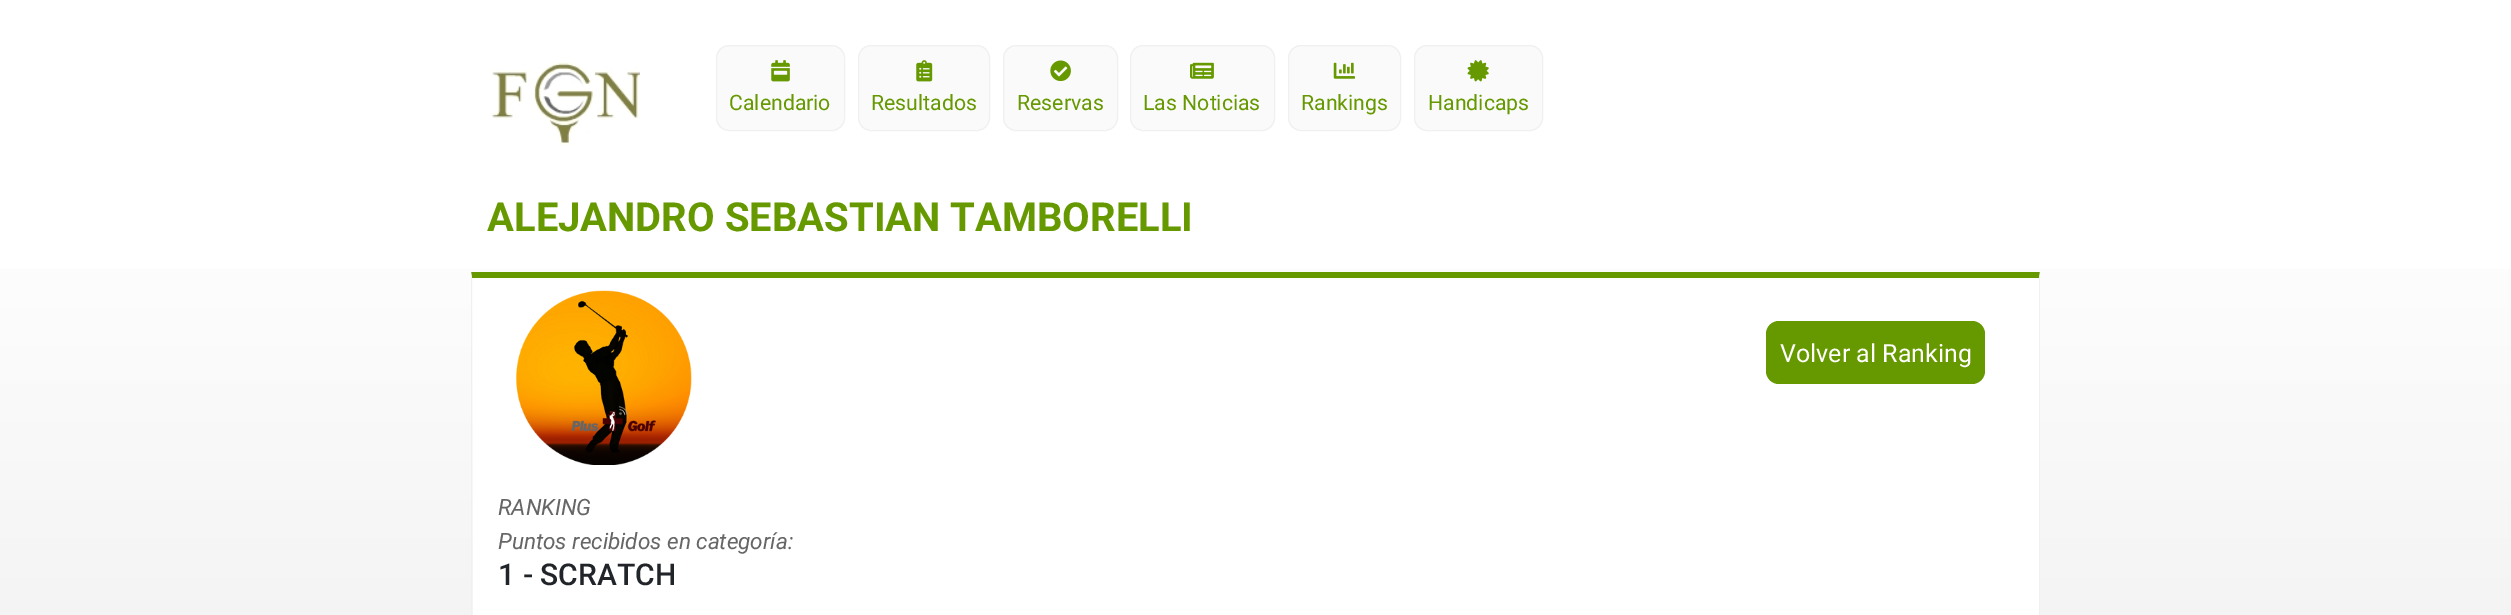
%!PS
<< /PageSize [2511 615] >> setpagedevice
/mt/moveto load def
/li/lineto load def
/cp/closepath load def
/fl/fill load def
/st/stroke load def
/gs/gsave load def
/gr/grestore load def
/co { dup -16 bitshift 255 div exch dup -8 bitshift 255 and 255 div exch 255 and 255 div setrgbcolor } def
/fn { [ exch dup neg 0 0 3 -1 roll 0 0 ] selectfont } def
/tx { co fn moveto show } def
/bx { co rectfill } def
/rr { 5 dict begin { /r /h /w /y /x } { exch def } forall
  x r add y moveto x w add y 2 copy h add r arct x w add y h add x 1 index r arct
  x y h add x y r arct x y 2 copy exch w add exch r arct closepath end } def
/im { 5 dict begin { /h /w /y /x /name } { exch def } forall
  gsave x y translate w h scale
  w h 8 [w 0 0 h 0 0] name (r) file false 3 colorimage grestore end } def
0 615 translate 1 -1 scale
4 setmiterlimit
0 0 2511 615 16#FFFFFF bx
(media/1.raw) 492 62 148 83 im
16#FAFAFA co
716.5 45.5 128 85 12.5 rr gs fl gr
16#F0F0F0 co
st
(media/2.raw) 771 60 19 22 im
16#FAFAFA co
858.5 45.5 131 85 12.5 rr gs fl gr
16#F0F0F0 co
st
(media/3.raw) 916 60 17 22 im
16#FAFAFA co
1003.5 45.5 114 85 12.5 rr gs fl gr
16#F0F0F0 co
st
(media/4.raw) 1050 60 21 22 im
16#FAFAFA co
1130.5 45.5 144 85 12.5 rr gs fl gr
16#F0F0F0 co
st
(media/5.raw) 1190 62 24 17 im
16#FAFAFA co
1288.5 45.5 112 85 12.5 rr gs fl gr
16#F0F0F0 co
st
(media/6.raw) 1333 62 22 17 im
16#FAFAFA co
1414.5 45.5 128 85 12.5 rr gs fl gr
16#F0F0F0 co
st
(media/7.raw) 1467 60 22 22 im
gs 0 269 mt 2511 269 li 2511 615 li 0 615 li cp clip newpath
<< /ShadingType 2 /ColorSpace /DeviceRGB /Coords [1256 162 1256 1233] /Extend [true true] /Function << /FunctionType 2 /Domain [0 1] /C0 [1 1 1] /C1 [.902 .902 .902] /N 1 >> >> shfill gr
473 278 1566 337 16#FFFFFF bx
16#669900 co
471 272 mt 2040 272 li 2039 278 li 472 278 li cp fl
16#F0F0F0 co
2040 272 mt 2040 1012 li 2039 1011 li 2039 278 li cp fl
471 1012 mt 471 272 li 472 278 li 472 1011 li cp fl
(media/8.raw) 516 290 176 175 im
16#669900 co
1766 321 219 63 13 rr fl
(Calendario) 729 110 /Roboto-Regular 21.25 16#669900 tx
(Resultados) 871 110 /Roboto-Regular 21.25 16#669900 tx
(Reservas) 1017 110 /Roboto-Regular 21.25 16#669900 tx
(Las Noticias) 1143 110 /Roboto-Regular 21.25 16#669900 tx
(Rankings) 1301 110 /Roboto-Regular 21.25 16#669900 tx
(Handicaps) 1428 110 /Roboto-Regular 21.25 16#669900 tx
(ALEJANDRO SEBASTIAN TAMBORELLI) 487 231 /Roboto-Bold 40 16#669900 tx
(Volver al Ranking) 1780 362 /Roboto-Regular 25 16#FFFFFF tx
(RANKING) 498 515 /Roboto-Italic 22.5 16#666666 tx
(Puntos recibidos en categoría:) 498 549 /Roboto-Italic 22.5 16#666666 tx
(1 - SCRATCH) 498 585 /Roboto-Medium 30 16#212529 tx
showpage
